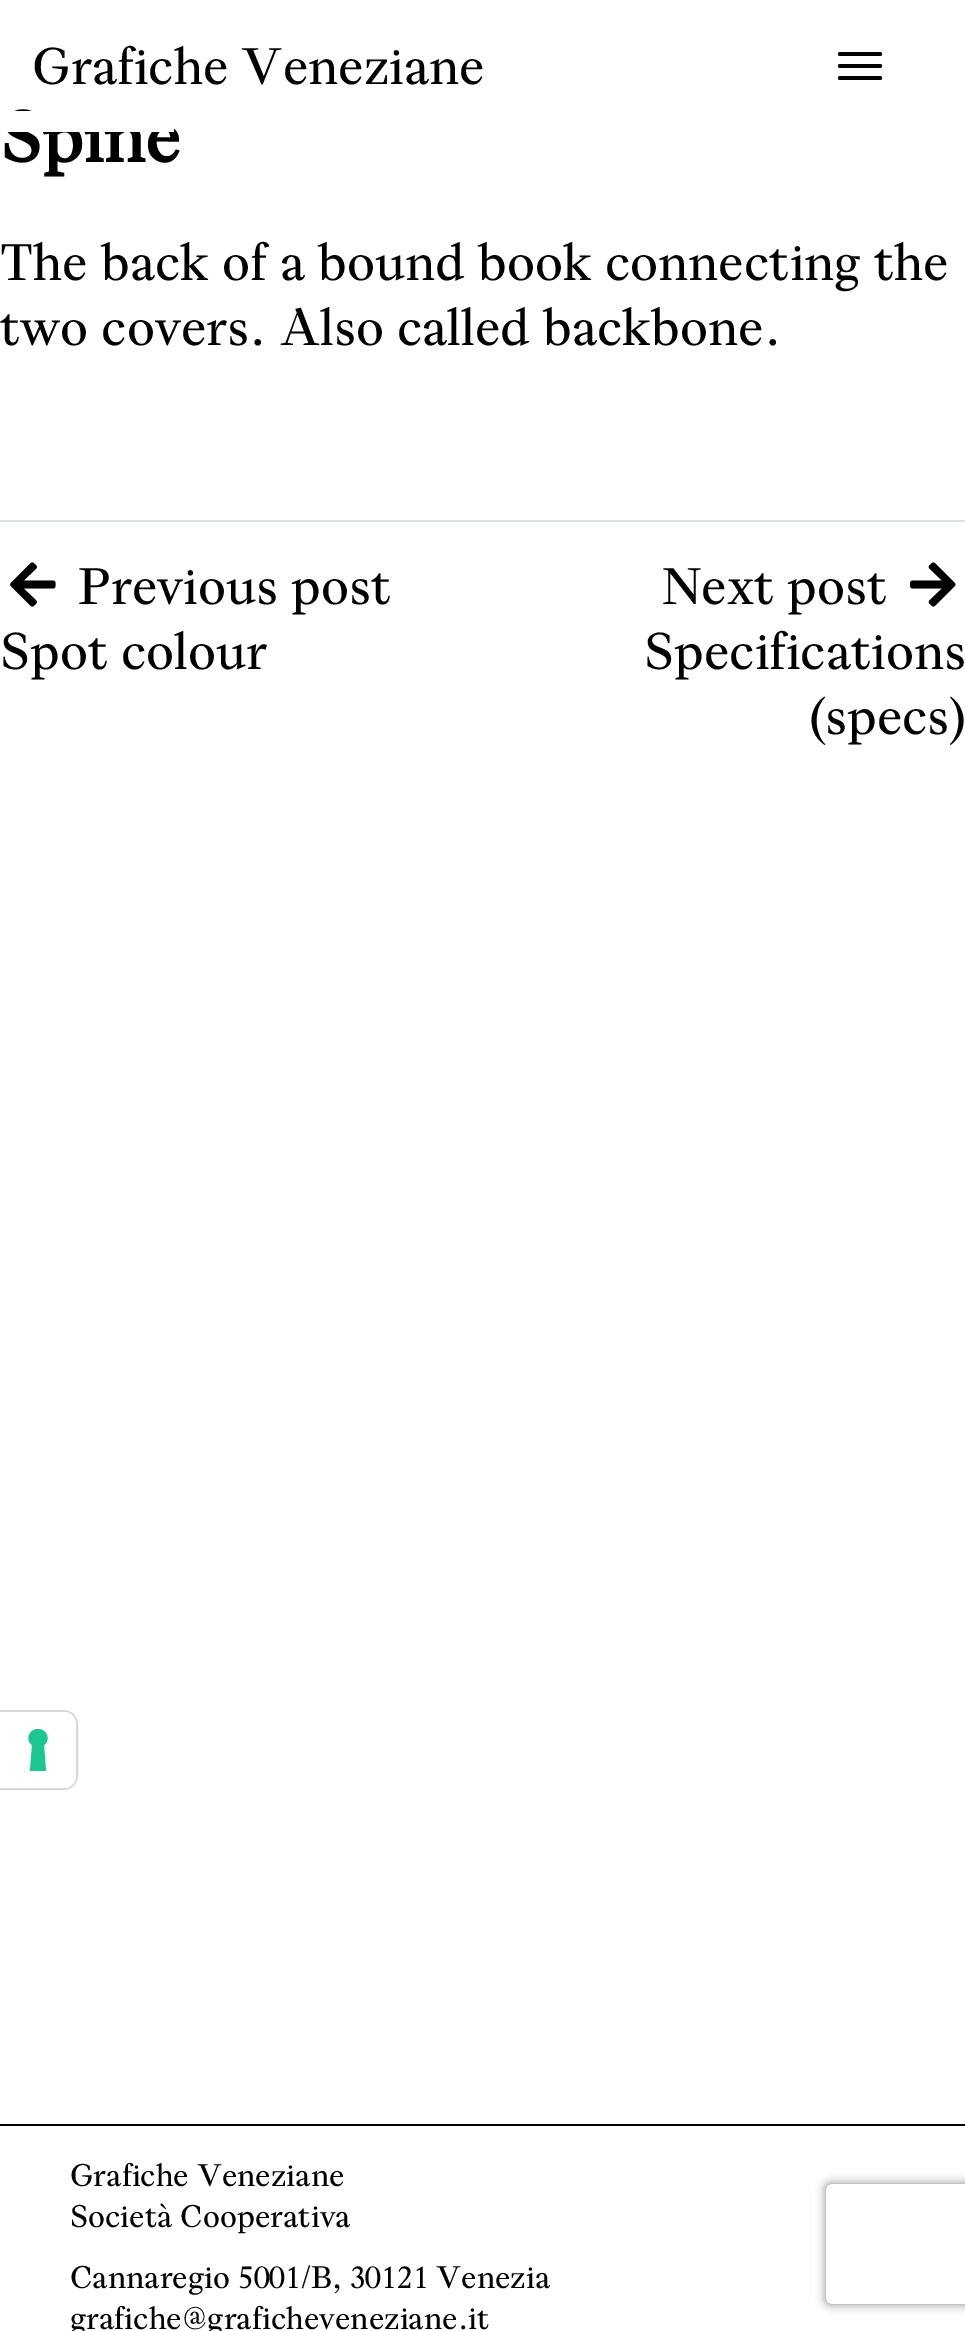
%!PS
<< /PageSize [965 2331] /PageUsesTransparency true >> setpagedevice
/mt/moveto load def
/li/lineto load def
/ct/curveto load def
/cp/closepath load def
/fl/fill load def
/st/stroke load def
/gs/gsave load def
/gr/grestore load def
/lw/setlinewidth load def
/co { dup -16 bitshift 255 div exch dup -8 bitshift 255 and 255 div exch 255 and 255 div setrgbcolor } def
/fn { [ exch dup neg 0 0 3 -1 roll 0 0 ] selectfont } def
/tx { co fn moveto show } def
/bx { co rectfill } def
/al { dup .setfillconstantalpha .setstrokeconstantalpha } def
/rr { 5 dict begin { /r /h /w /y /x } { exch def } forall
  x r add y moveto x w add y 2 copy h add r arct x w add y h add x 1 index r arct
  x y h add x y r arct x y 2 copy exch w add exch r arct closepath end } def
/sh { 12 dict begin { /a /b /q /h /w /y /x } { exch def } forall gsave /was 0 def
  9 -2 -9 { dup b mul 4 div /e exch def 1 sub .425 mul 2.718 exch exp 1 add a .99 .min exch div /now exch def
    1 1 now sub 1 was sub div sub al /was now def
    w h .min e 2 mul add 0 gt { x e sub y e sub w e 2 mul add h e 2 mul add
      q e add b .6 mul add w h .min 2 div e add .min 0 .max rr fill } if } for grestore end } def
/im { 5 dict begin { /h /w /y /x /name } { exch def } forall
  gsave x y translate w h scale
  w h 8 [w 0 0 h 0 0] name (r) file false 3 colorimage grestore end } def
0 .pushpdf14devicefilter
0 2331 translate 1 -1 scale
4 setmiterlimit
0 0 965 2331 16#FFFFFF bx
16#000000 co
838 52 44 4 2 rr fl
838 64 44 4 2 rr fl
838 76 44 4 2 rr fl
0 520 965 2 16#DEE2E6 bx
(media/1.raw) 10 562 46 45 im
(media/2.raw) 910 562 46 45 im
16#D9D9D9 co
2 lw
-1 1711 mt 64 1711 li 71 1711 77 1717 77 1724 ct 77 1776 li 77 1783 71 1789 64 1789 ct -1 1789 li cp st
16#FFFFFF co
0 1712 mt 64 1712 li 70.5 1712 76 1717.5 76 1724 ct 76 1776 li 76 1782.5 70.5 1788 64 1788 ct 0 1788 li cp fl
16#1CC691 co
38 1729 mt 47 1729 51 1740 44 1745 ct 46 1771 li 30 1771 li 32 1745 li 25 1740 29 1729 38 1729 ct cp eofill
0 2124 965 2 16#000000 bx
gs
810 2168 mt 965 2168 li 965 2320 li 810 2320 li cp 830 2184 mt 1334 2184 li 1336 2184 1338 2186 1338 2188 ct 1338 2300 li 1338 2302 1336 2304 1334 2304 ct 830 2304 li 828 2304 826 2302 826 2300 ct 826 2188 li 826 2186 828 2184 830 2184 ct cp eoclip newpath
16#808080 co
826 2184 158 120 4 5 1 sh
gr
(Grafiche Veneziane) 32 84 /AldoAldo-Regular 52 16#000000 tx
(Spine) 0 162 /AldoAldo-Bold 72 16#000000 tx
5 111 169 21 16#FFFFFF bx
(The back of a bound book connecting the) 0 280 /AldoAldo-Regular 52 16#000000 tx
(two covers. Also called backbone.) 0 345 /AldoAldo-Regular 52 16#000000 tx
(Previous post) 78 604 /AldoAldo-Regular 52 16#000000 tx
(Spot colour) 0 669 /AldoAldo-Regular 52 16#000000 tx
(Next post) 662 604 /AldoAldo-Regular 52 16#000000 tx
(Specifications) 644 669 /AldoAldo-Regular 52 16#000000 tx
(\(specs\)) 808 734 /AldoAldo-Regular 52 16#000000 tx
(Grafiche Veneziane) 70 2186 /AldoAldo-Regular 31.5 16#000000 tx
(Società Cooperativa) 70 2227 /AldoAldo-Regular 31.5 16#000000 tx
(Cannaregio 5001/B, 30121 Venezia) 70 2288 /AldoAldo-Regular 31.5 16#000000 tx
(grafiche@graficheveneziane.it) 70 2329 /AldoAldo-Regular 31.5 16#000000 tx
.poppdf14devicefilter showpage
